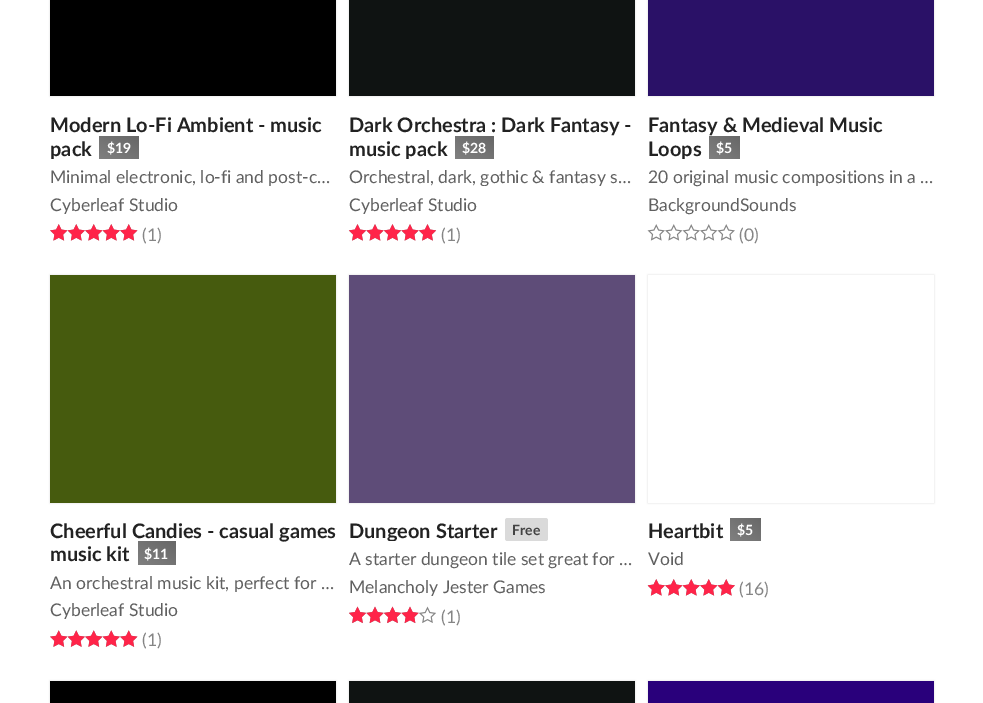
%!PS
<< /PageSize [983 703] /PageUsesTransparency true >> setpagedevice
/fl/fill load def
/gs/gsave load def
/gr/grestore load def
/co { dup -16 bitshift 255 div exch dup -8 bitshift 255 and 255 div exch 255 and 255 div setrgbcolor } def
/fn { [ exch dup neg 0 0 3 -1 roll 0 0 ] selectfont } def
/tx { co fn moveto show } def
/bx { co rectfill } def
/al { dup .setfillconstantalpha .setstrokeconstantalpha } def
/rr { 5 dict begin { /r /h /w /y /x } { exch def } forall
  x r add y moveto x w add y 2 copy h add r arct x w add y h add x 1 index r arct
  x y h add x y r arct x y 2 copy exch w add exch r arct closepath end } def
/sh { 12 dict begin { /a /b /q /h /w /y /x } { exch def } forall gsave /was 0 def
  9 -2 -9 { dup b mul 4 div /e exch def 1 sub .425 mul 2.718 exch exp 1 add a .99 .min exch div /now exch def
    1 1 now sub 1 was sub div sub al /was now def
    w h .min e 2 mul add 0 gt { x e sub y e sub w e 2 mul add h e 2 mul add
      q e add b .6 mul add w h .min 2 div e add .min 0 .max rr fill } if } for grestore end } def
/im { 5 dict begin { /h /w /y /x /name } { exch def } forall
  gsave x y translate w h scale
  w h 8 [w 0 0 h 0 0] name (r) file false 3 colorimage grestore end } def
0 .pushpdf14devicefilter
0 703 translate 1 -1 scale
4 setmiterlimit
0 0 983 703 16#FFFFFF bx
16#000000 co
50 -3 286 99 0 1 .15 sh
50 0 286 96 16#000000 bx
gs 99 136 40 23 2.5 rr clip newpath
<< /ShadingType 2 /ColorSpace /DeviceRGB /Coords [109 165 128 130] /Extend [true true] /Function << /FunctionType 2 /Domain [0 1] /C0 [.502 .502 .502] /C1 [.404 .404 .404] /N 1 >> >> shfill gr
(media/1.raw) 50 224 18 17 im
(media/2.raw) 67 224 18 17 im
(media/1.raw) 85 224 18 17 im
(media/2.raw) 102 224 18 17 im
(media/1.raw) 120 224 18 17 im
(media/3.raw) 50 224 18 17 im
(media/4.raw) 67 224 18 17 im
(media/3.raw) 85 224 18 17 im
(media/4.raw) 102 224 18 17 im
(media/5.raw) 120 224 18 17 im
349 -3 286 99 0 1 .15 sh
349 0 286 96 16#0F1312 bx
gs 455 136 39 23 2.5 rr clip newpath
<< /ShadingType 2 /ColorSpace /DeviceRGB /Coords [465 164 484 131] /Extend [true true] /Function << /FunctionType 2 /Domain [0 1] /C0 [.502 .502 .502] /C1 [.404 .404 .404] /N 1 >> >> shfill gr
(media/6.raw) 348 224 19 17 im
(media/7.raw) 366 224 18 17 im
(media/8.raw) 384 224 18 17 im
(media/7.raw) 401 224 18 17 im
(media/8.raw) 419 224 18 17 im
(media/9.raw) 349 224 18 17 im
(media/10.raw) 366 224 18 17 im
(media/11.raw) 383 224 19 17 im
(media/10.raw) 401 224 18 17 im
(media/12.raw) 418 224 18 17 im
16#000000 co
648 -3 286 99 0 1 .15 sh
648 0 286 96 16#2A1167 bx
gs 709 136 31 23 2.5 rr clip newpath
<< /ShadingType 2 /ColorSpace /DeviceRGB /Coords [714 162 735 133] /Extend [true true] /Function << /FunctionType 2 /Domain [0 1] /C0 [.502 .502 .502] /C1 [.404 .404 .404] /N 1 >> >> shfill gr
(media/13.raw) 647 224 18 17 im
(media/1.raw) 665 224 18 17 im
(media/2.raw) 682 224 18 17 im
(media/1.raw) 700 224 18 17 im
(media/2.raw) 717 224 18 17 im
16#000000 co
50 275 286 228 0 1 .15 sh
50 275 286 228 16#465B0E bx
(media/14.raw) 50 630 18 17 im
(media/15.raw) 67 630 18 17 im
(media/14.raw) 85 630 18 17 im
(media/15.raw) 102 630 18 17 im
(media/14.raw) 120 630 18 17 im
(media/16.raw) 50 630 18 17 im
(media/17.raw) 67 630 18 17 im
(media/16.raw) 85 630 18 17 im
(media/17.raw) 102 630 18 17 im
(media/18.raw) 120 630 18 17 im
16#000000 co
349 275 286 228 0 1 .15 sh
349 275 286 228 16#5E4C78 bx
16#DADADA co
505 518 43 23 2.5 rr fl
(media/19.raw) 349 606 17 17 im
(media/20.raw) 366 606 18 17 im
(media/19.raw) 384 606 17 17 im
(media/20.raw) 401 606 18 17 im
(media/19.raw) 419 606 17 17 im
(media/21.raw) 349 606 18 18 im
(media/22.raw) 366 606 18 18 im
(media/23.raw) 383 606 19 18 im
(media/22.raw) 401 606 18 18 im
418 612 1 1 16#F2D2D7 bx
16#000000 co
648 275 286 228 0 1 .15 sh
648 275 286 228 16#FFFFFF bx
gs 730 518 31 23 2.5 rr clip newpath
<< /ShadingType 2 /ColorSpace /DeviceRGB /Coords [734 544 757 514] /Extend [true true] /Function << /FunctionType 2 /Domain [0 1] /C0 [.502 .502 .502] /C1 [.404 .404 .404] /N 1 >> >> shfill gr
(media/13.raw) 647 579 18 17 im
(media/1.raw) 665 579 18 17 im
(media/2.raw) 682 579 18 17 im
(media/1.raw) 700 579 18 17 im
(media/2.raw) 717 579 18 17 im
(media/24.raw) 648 579 17 17 im
(media/3.raw) 665 579 18 17 im
(media/4.raw) 682 579 18 17 im
(media/3.raw) 700 579 18 17 im
(media/4.raw) 717 579 18 17 im
16#000000 co
50 681 286 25 0 1 .15 sh
50 681 286 22 16#000000 bx
349 681 286 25 0 1 .15 sh
349 681 286 22 16#0F1312 bx
16#000000 co
648 681 286 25 0 1 .15 sh
648 681 286 22 16#29007B bx
(Modern Lo-Fi Ambient - music) 50 132 /Lato-Bold 20 16#222222 tx
gs
50 111 286 48 rectclip
(pack) 50 156 /Lato-Bold 20 16#222222 tx
gr
($19) 107 153 /Lato-Bold 14 16#FFFFFF tx
(Minimal electronic, lo-fi and post-c…) 50 183 /Lato-Regular 17.5 16#606060 tx
(Cyberleaf Studio) 50 211 /Lato-Regular 17.5 16#606060 tx
(\(1\)) 142 241 /Lato-Regular 17.5 16#858585 tx
(Dark Orchestra : Dark Fantasy -) 349 132 /Lato-Bold 20 16#222222 tx
gs
349 111 286 48 rectclip
(music pack) 349 156 /Lato-Bold 20 16#222222 tx
gr
($28) 462 153 /Lato-Bold 14 16#FFFFFF tx
gs
349 165 286 21 rectclip
(Orchestral, dark, gothic & fantasy s…) 349 183 /Lato-Regular 17.5 16#606060 tx
gr
(Cyberleaf Studio) 349 211 /Lato-Regular 17.5 16#606060 tx
(\(1\)) 441 241 /Lato-Regular 17.5 16#858585 tx
(Fantasy & Medieval Music) 648 132 /Lato-Bold 20 16#222222 tx
gs
648 111 286 48 rectclip
(Loops) 648 156 /Lato-Bold 20 16#222222 tx
gr
($5) 716 153 /Lato-Bold 14 16#FFFFFF tx
(20 original music compositions in a …) 648 183 /Lato-Regular 17.5 16#606060 tx
(BackgroundSounds) 648 211 /Lato-Regular 17.5 16#606060 tx
(\(0\)) 739 241 /Lato-Regular 17.5 16#858585 tx
(Cheerful Candies - casual games) 50 538 /Lato-Bold 20 16#222222 tx
(music kit) 50 561 /Lato-Bold 20 16#222222 tx
gs 138 541 38 24 2.5 rr clip newpath
<< /ShadingType 2 /ColorSpace /DeviceRGB /Coords [146 570 167 536] /Extend [true true] /Function << /FunctionType 2 /Domain [0 1] /C0 [.502 .502 .502] /C1 [.404 .404 .404] /N 1 >> >> shfill gr
($11) 144 559 /Lato-Bold 14 16#FFFFFF tx
(An orchestral music kit, perfect for …) 50 589 /Lato-Regular 17.5 16#606060 tx
(Cyberleaf Studio) 50 616 /Lato-Regular 17.5 16#606060 tx
(\(1\)) 142 646 /Lato-Regular 17.5 16#858585 tx
gs
349 518 286 23 rectclip
(Dungeon Starter) 349 538 /Lato-Bold 20 16#222222 tx
gr
(Free) 512 535 /Lato-Bold 14 16#434343 tx
(A starter dungeon tile set great for …) 349 565 /Lato-Regular 17.5 16#606060 tx
(Melancholy Jester Games) 349 593 /Lato-Regular 17.5 16#606060 tx
(\(1\)) 441 623 /Lato-Regular 17.5 16#858585 tx
(Heartbit) 648 538 /Lato-Bold 20 16#222222 tx
($5) 737 535 /Lato-Bold 14 16#FFFFFF tx
(Void) 648 565 /Lato-Regular 17.5 16#606060 tx
(\(16\)) 739 595 /Lato-Regular 17.5 16#858585 tx
.poppdf14devicefilter showpage
